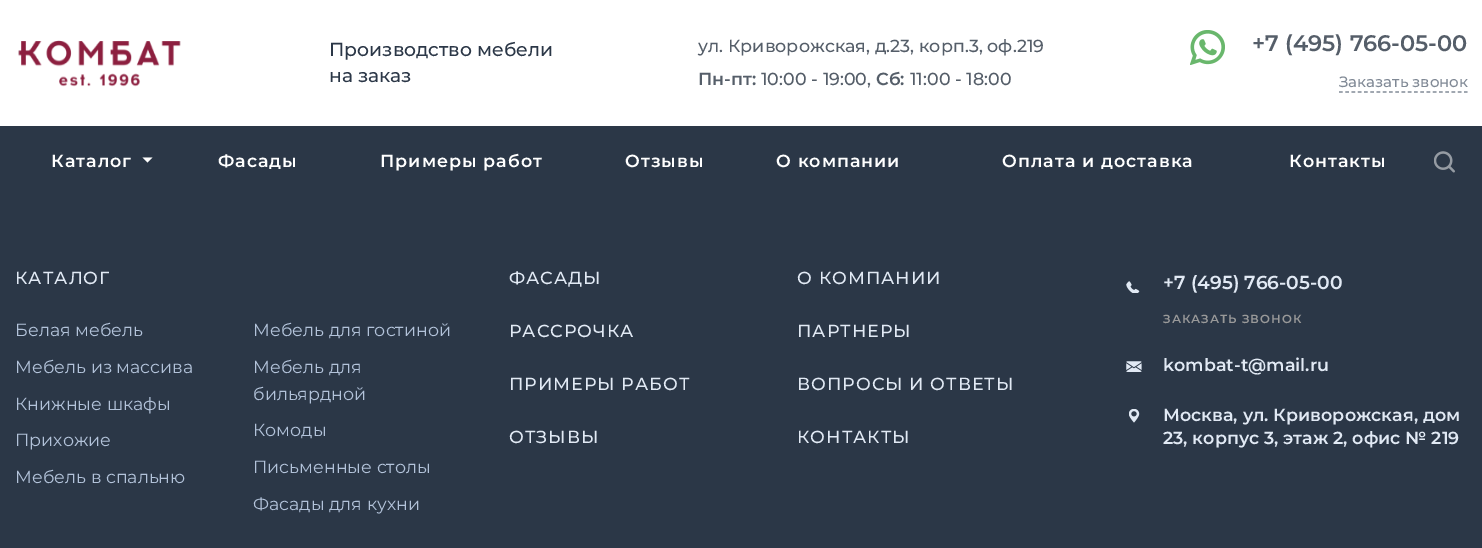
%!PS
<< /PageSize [1482 548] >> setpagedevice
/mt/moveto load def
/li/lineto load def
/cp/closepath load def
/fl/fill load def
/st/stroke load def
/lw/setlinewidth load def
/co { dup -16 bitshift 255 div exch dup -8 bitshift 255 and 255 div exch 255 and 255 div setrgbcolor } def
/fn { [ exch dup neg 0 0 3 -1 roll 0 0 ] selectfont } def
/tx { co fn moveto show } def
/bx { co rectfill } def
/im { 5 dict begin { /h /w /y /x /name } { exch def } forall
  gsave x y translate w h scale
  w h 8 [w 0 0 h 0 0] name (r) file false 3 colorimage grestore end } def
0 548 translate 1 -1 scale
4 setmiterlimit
0 0 1482 548 16#2B3747 bx
0 0 1482 126 16#FFFFFF bx
(media/1.raw) 18 40 163 47 im
(media/2.raw) 1190 30 35 35 im
16#808995 co
1.2 lw
[3.75 2.5] 0 setdash
1339 92 mt 1467.5 92 li st
16#FFFFFF co
142.5 157.5 mt 152.5 157.5 li 147.5 162.5 li cp fl
(media/3.raw) 1434 151 21 22 im
(media/4.raw) 1126 281 14 12 im
(media/5.raw) 1126 361 16 11 im
(media/6.raw) 1129 409 11 14 im
(Производство мебели) 329 56 /Montserrat-Medium 18.75 16#2B3747 tx
(на заказ) 329 82 /Montserrat-Medium 18.75 16#2B3747 tx
(ул. Криворожская, д.23, корп.3, оф.219) 698 52 /Montserrat-Medium 17.5 16#555E69 tx
(Пн-пт:) 698 85 /Montserrat-SemiBold 17.5 16#555E69 tx
(10:00 - 19:00,) 761 85 /Montserrat-Medium 17.5 16#555E69 tx
(Сб:) 876 85 /Montserrat-SemiBold 17.5 16#555E69 tx
(11:00 - 18:00) 910 85 /Montserrat-Medium 17.5 16#555E69 tx
(+7 \(495\) 766-05-00) 1252 51 /Montserrat-SemiBold 22.5 16#555E69 tx
(Заказать звонок) 1339 87 /Montserrat-Medium 15 16#808995 tx
/Montserrat-SemiBold 17.5 fn
16#FFFFFF co
51 167 mt 1 0 (Каталог) ashow
218 167 mt 1 0 (Фасады) ashow
380 167 mt 1 0 (Примеры работ) ashow
625 167 mt 1 0 (Отзывы) ashow
776 167 mt 1 0 (О компании) ashow
1002 167 mt 1 0 (Оплата и доставка) ashow
1289 167 mt 1 0 (Контакты) ashow
/Montserrat-Medium 17.5 fn
16#E1E9F4 co
15 284 mt 1 0 (КАТАЛОГ) ashow
(Белая мебель) 15 336 /Montserrat-Regular 17.5 16#B3C3DA tx
(Мебель для гостиной) 253 336 /Montserrat-Regular 17.5 16#B3C3DA tx
(Мебель из массива) 15 373 /Montserrat-Regular 17.5 16#B3C3DA tx
(Мебель для) 253 373 /Montserrat-Regular 17.5 16#B3C3DA tx
(бильярдной) 253 400 /Montserrat-Regular 17.5 16#B3C3DA tx
(Книжные шкафы) 15 410 /Montserrat-Regular 17.5 16#B3C3DA tx
(Комоды) 253 436 /Montserrat-Regular 17.5 16#B3C3DA tx
(Прихожие) 15 446 /Montserrat-Regular 17.5 16#B3C3DA tx
(Письменные столы) 253 473 /Montserrat-Regular 17.5 16#B3C3DA tx
(Мебель в спальню) 15 483 /Montserrat-Regular 17.5 16#B3C3DA tx
(Фасады для кухни) 253 510 /Montserrat-Regular 17.5 16#B3C3DA tx
/Montserrat-Medium 17.5 fn
16#E1E9F4 co
509 284 mt 1 0 (ФАСАДЫ) ashow
797 284 mt 1 0 (О КОМПАНИИ) ashow
509 337 mt 1 0 (РАССРОЧКА) ashow
797 337 mt 1 0 (ПАРТНЕРЫ) ashow
509 390 mt 1 0 (ПРИМЕРЫ РАБОТ) ashow
797 390 mt 1 0 (ВОПРОСЫ И ОТВЕТЫ) ashow
509 443 mt 1 0 (ОТЗЫВЫ) ashow
797 443 mt 1 0 (КОНТАКТЫ) ashow
(+7 \(495\) 766-05-00) 1163 289 /Montserrat-SemiBold 18.75 16#E1E9F4 tx
/Montserrat-SemiBold 11.75 fn
16#999999 co
1163 323 mt 1 0 (ЗАКАЗАТЬ ЗВОНОК) ashow
(kombat-t@mail.ru) 1163 371 /Montserrat-SemiBold 17.5 16#E1E9F4 tx
(Москва, ул. Криворожская, дом) 1163 421 /Montserrat-SemiBold 17.5 16#E1E9F4 tx
(23, корпус 3, этаж 2, офис № 219) 1163 444 /Montserrat-SemiBold 17.5 16#E1E9F4 tx
showpage
